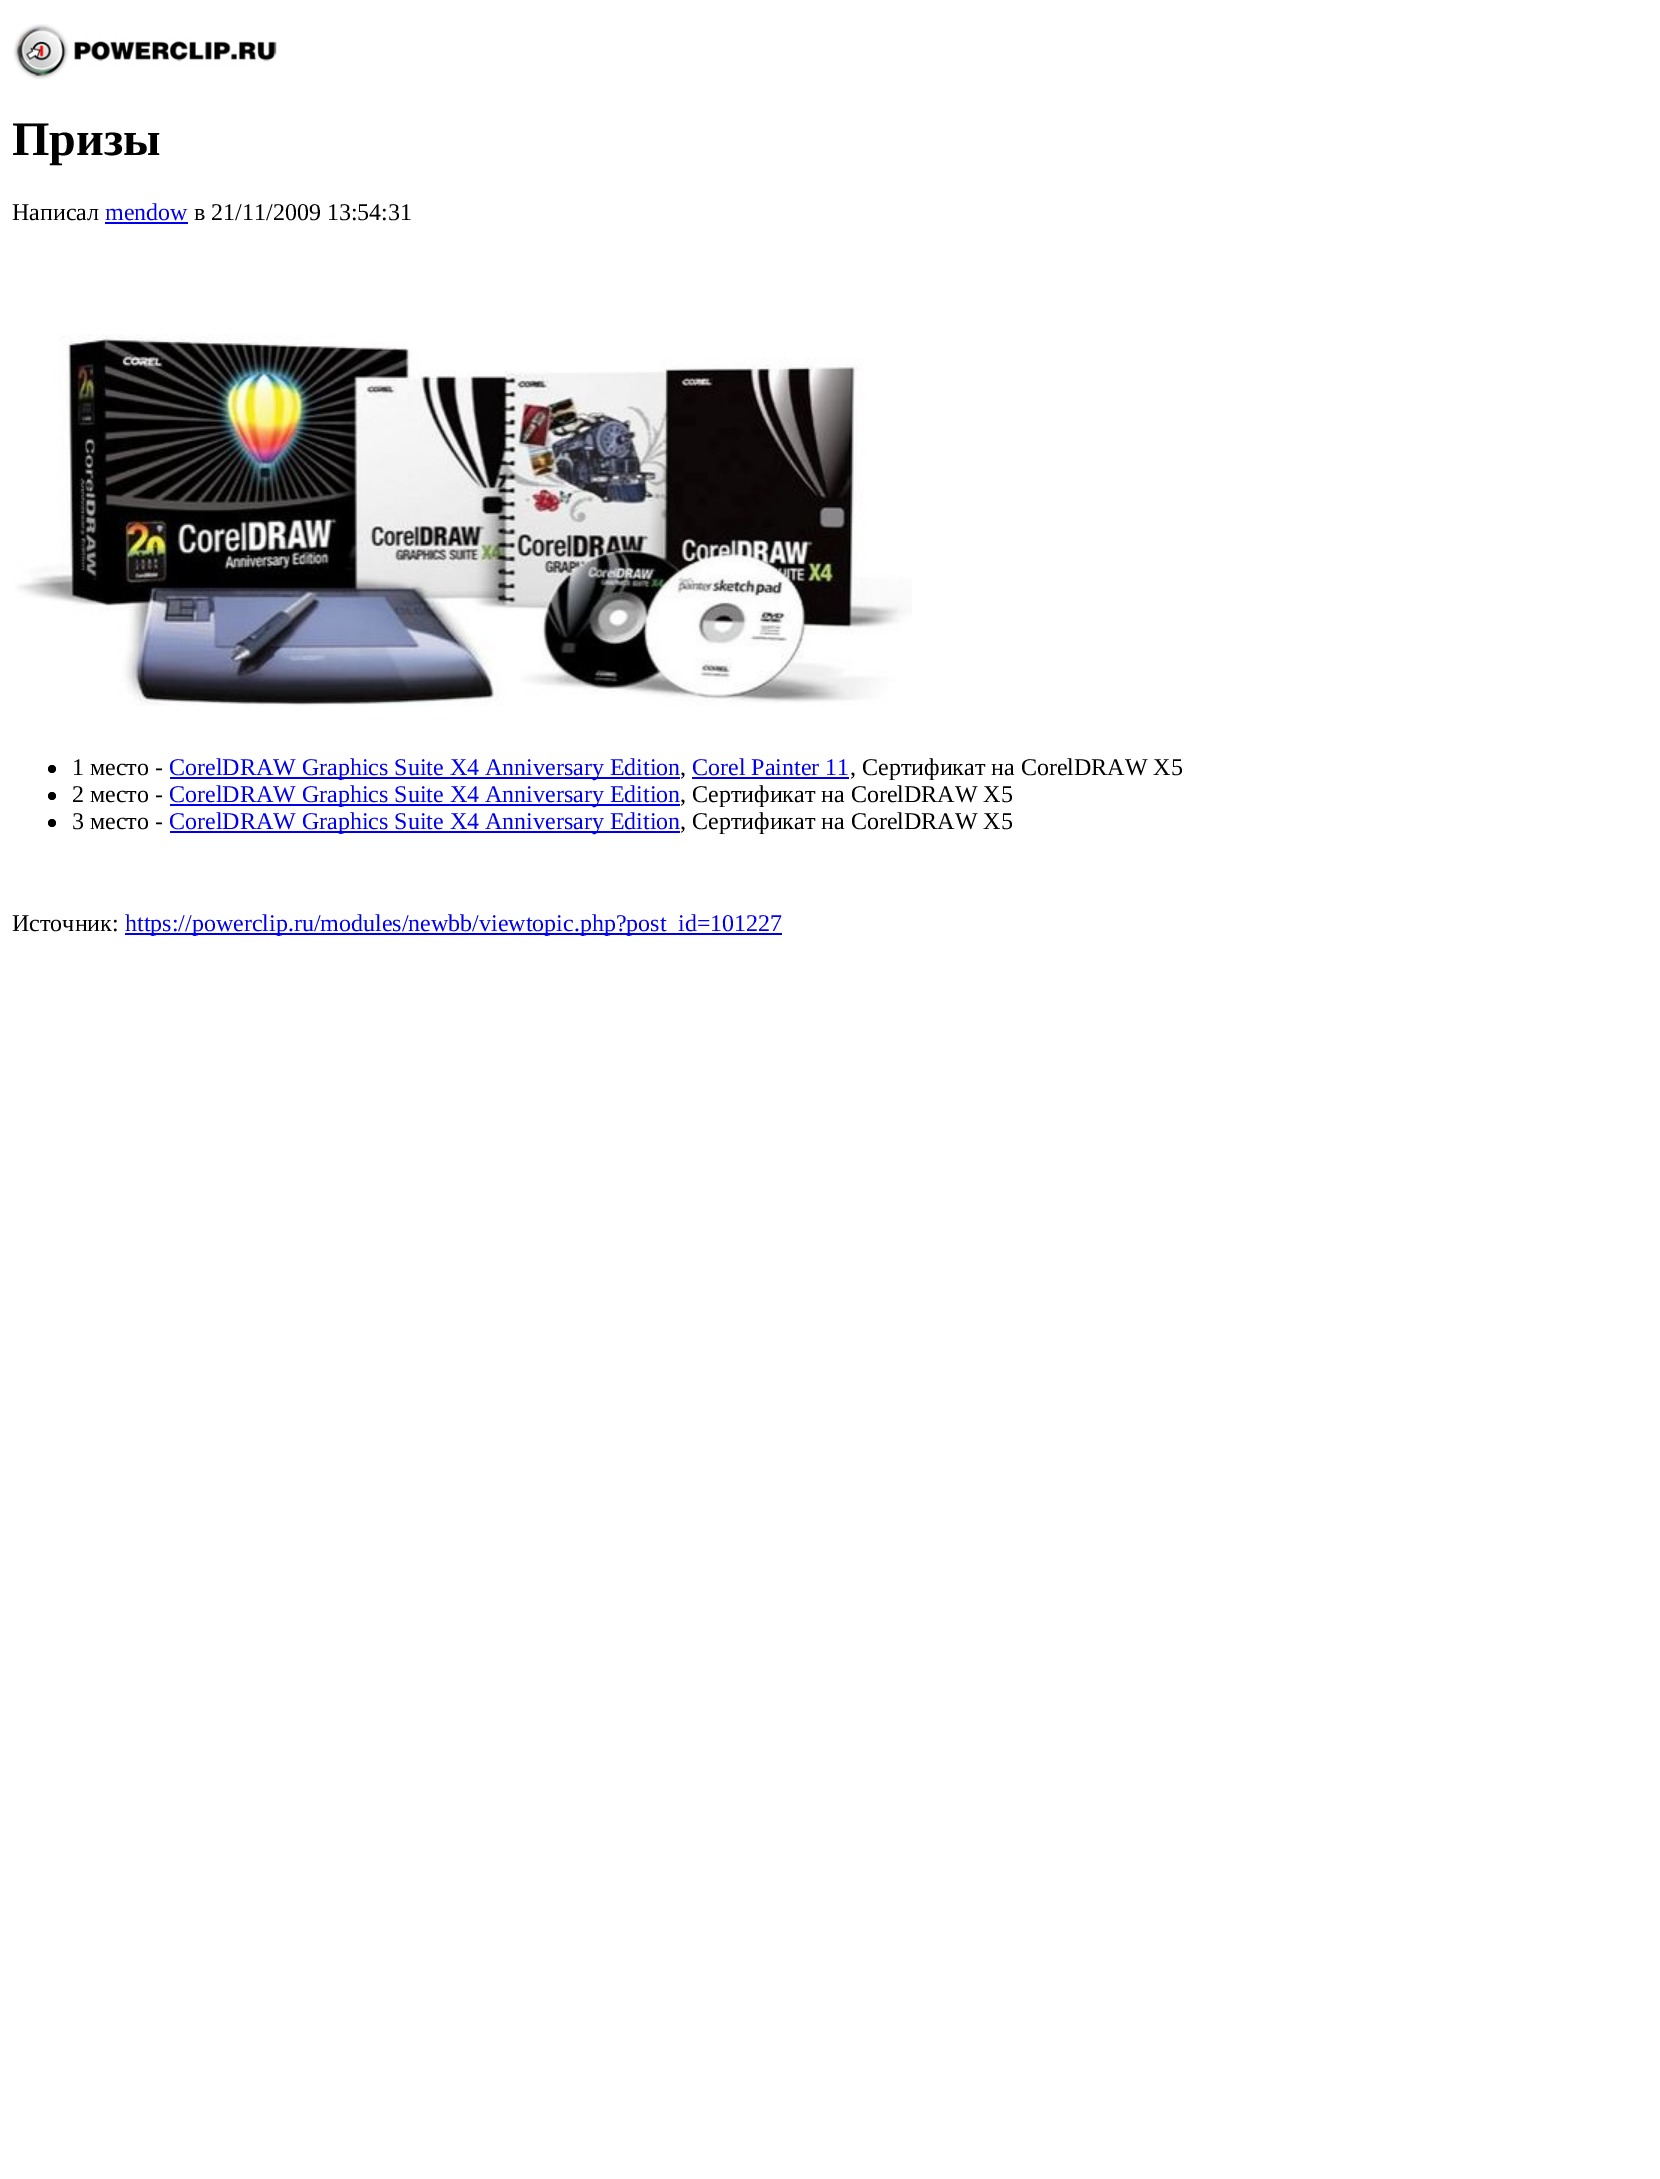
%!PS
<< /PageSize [1660 2179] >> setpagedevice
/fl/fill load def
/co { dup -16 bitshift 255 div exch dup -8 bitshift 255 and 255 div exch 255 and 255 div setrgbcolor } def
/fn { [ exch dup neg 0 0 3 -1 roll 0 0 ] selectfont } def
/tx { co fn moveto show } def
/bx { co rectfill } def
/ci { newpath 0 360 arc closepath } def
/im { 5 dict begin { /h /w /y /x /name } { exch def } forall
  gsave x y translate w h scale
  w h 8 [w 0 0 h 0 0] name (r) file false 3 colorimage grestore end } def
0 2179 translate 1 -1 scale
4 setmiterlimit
0 0 1660 2179 16#FFFFFF bx
(media/1.raw) 13 24 264 56 im
105 222 83 2 16#0000EE bx
(media/2.raw) 15 334 897 372 im
16#000000 co
52 769 4 ci fl
170 777 510 2 16#0000EE bx
692 777 157 2 16#0000EE bx
16#000000 co
52 796 4 ci fl
170 804 510 2 16#0000EE bx
16#000000 co
52 823 4 ci fl
170 831 510 2 16#0000EE bx
125 933 657 2 16#0000EE bx
(Призы) 12 155 /LiberationSerif-Bold 48 16#000000 tx
(Написал) 12 220 /LiberationSerif-Regular 24 16#000000 tx
(mendow) 105 220 /LiberationSerif-Regular 24 16#0000EE tx
(в 21/11/2009 13:54:31) 194 220 /LiberationSerif-Regular 24 16#000000 tx
(1 место -) 72 775 /LiberationSerif-Regular 24 16#000000 tx
(CorelDRAW Graphics Suite X4 Anniversary Edition) 169 775 /LiberationSerif-Regular 24 16#0000EE tx
(Corel Painter 11) 692 775 /LiberationSerif-Regular 24 16#0000EE tx
(, Сертификат на CorelDRAW X5) 850 775 /LiberationSerif-Regular 24 16#000000 tx
(,) 680 775 /LiberationSerif-Regular 24 16#000000 tx
(2 место -) 72 802 /LiberationSerif-Regular 24 16#000000 tx
(CorelDRAW Graphics Suite X4 Anniversary Edition) 169 802 /LiberationSerif-Regular 24 16#0000EE tx
(, Сертификат на CorelDRAW X5) 680 802 /LiberationSerif-Regular 24 16#000000 tx
(3 место -) 72 829 /LiberationSerif-Regular 24 16#000000 tx
(CorelDRAW Graphics Suite X4 Anniversary Edition) 169 829 /LiberationSerif-Regular 24 16#0000EE tx
(, Сертификат на CorelDRAW X5) 680 829 /LiberationSerif-Regular 24 16#000000 tx
(Источник:) 12 931 /LiberationSerif-Regular 24 16#000000 tx
(https://powerclip.ru/modules/newbb/viewtopic.php?post_id=101227) 125 931 /LiberationSerif-Regular 24 16#0000EE tx
showpage
